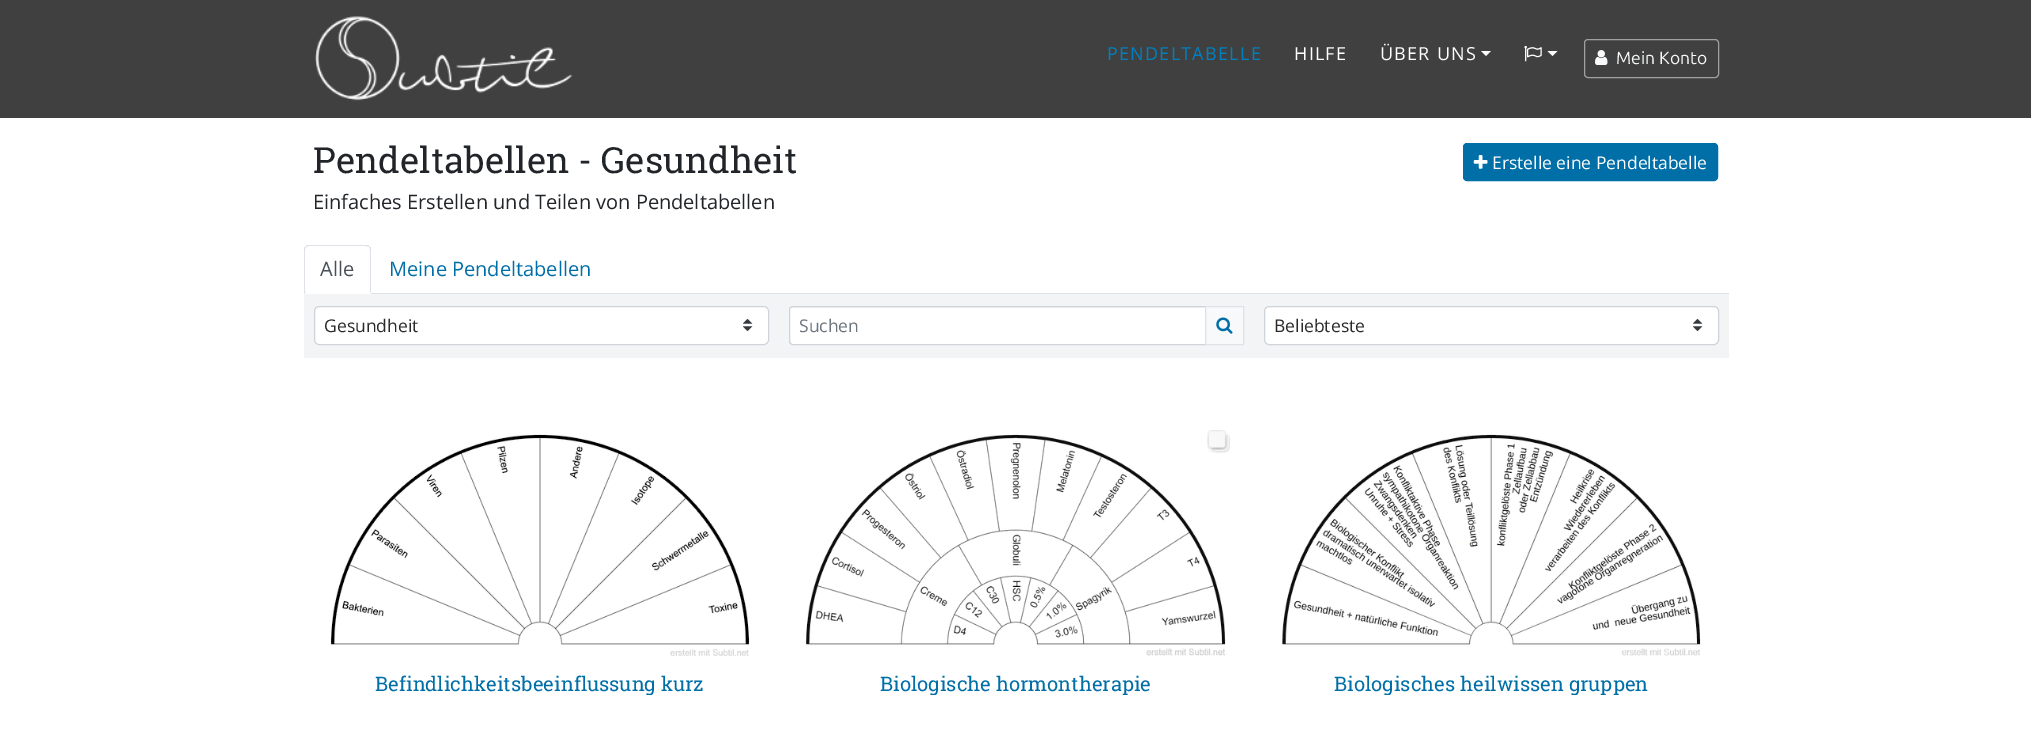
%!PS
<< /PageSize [2031 753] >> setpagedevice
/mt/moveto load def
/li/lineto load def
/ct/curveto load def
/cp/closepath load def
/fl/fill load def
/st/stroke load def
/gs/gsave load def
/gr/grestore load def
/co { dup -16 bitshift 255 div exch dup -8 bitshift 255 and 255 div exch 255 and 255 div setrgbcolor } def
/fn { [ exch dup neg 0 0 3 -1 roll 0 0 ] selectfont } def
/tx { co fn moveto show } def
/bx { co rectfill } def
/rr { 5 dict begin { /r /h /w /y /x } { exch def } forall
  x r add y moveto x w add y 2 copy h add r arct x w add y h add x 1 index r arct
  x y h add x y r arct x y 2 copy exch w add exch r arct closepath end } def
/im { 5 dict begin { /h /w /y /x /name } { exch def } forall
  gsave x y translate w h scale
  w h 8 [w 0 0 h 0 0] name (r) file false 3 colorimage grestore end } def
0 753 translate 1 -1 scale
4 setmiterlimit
0 0 2031 753 16#FFFFFF bx
0 0 2031 118 16#404040 bx
(media/1.raw) 315 16 258 85 im
16#FFFFFF co
1481 51 mt 1491 51 li 1486 56 li cp fl
(media/2.raw) 1524 45 18 17 im
1547.5 51 mt 1557.5 51 li 1552.5 56 li cp fl
16#A0A0A0 co
1584.5 39.5 134 38 3.5 rr st
(media/3.raw) 1595 50 13 15 im
16#006FA8 co
1463.5 143.5 254 37 3.5 rr gs fl gr
st
(media/4.raw) 1473 155 15 14 im
371 293 1358 1 16#DEE2E6 bx
309 245 mt 307 245 306 246 305 247 ct 306 247 li 309 246 li 366 246 li 369 247 li 370 247 li 369 246 368 245 366 245 ct cp fl
370 247 mt 371 247 371 249 371 250 ct 371 294 li 370 292 li 370 250 li 370 249 370 248 369 247 ct cp fl
16#FFFFFF co
304 294 mt 306 292 li 370 292 li 371 294 li cp fl
16#DEE2E6 co
305 247 mt 304 247 304 249 304 250 ct 304 294 li 306 292 li 305 292 li 305 250 li 305 249 305 248 306 247 ct cp fl
304 294 1425 64 16#F3F4F5 bx
16#FFFFFF co
314 306 455 39 5 rr fl
(media/5.raw) 743 319 10 12 im
16#CED4DA co
314.5 306.5 454 38 4.5 rr st
16#FFFFFF co
792.5 308 mt 1205 308 li 1205 344 li 792.5 344 li 791 344 790 343 790 341.5 ct 790 310.5 li 790 309 791 308 792.5 308 ct cp fl
16#CED4DA co
793 306.5 mt 1205.5 306.5 li 1205.5 344.5 li 793 344.5 li 791 344.5 789.5 343 789.5 341 ct 789.5 310 li 789.5 308 791 306.5 793 306.5 ct cp st
16#F8F9FA co
1205.5 306.5 mt 1243.5 306.5 li 1243.5 344.5 li 1205.5 344.5 li cp gs fl gr
16#DEE2E6 co
st
(media/6.raw) 1216 317 17 17 im
16#FFFFFF co
1264 306 455 39 5 rr fl
(media/5.raw) 1693 319 10 12 im
16#CED4DA co
1264.5 306.5 454 38 4.5 rr st
(media/7.raw) 330 434 420 222 im
(media/9.raw) 805 434 421 222 im
(media/8.raw) 1207 430 23 23 im
(media/10.raw) 1282 434 419 222 im
/OpenSans-Regular 18 fn
16#0180C0 co
1107 60 mt 1.25 0 (PENDELTABELLE) ashow
16#FFFFFF co
1294 60 mt 1.25 0 (HILFE) ashow
1380 60 mt 1.25 0 (ÜBER UNS) ashow
(Mein Konto) 1616 64 /Ubuntu-Regular 17.5 16#F8F9FA tx
(Pendeltabellen - Gesundheit) 313 173 /RobotoSlab-Regular 36 16#212529 tx
(Einfaches Erstellen und Teilen von Pendeltabellen) 313 209 /OpenSans-Regular 20 16#212529 tx
(Erstelle eine Pendeltabelle) 1492 169 /OpenSans-Regular 17.5 16#FFFFFF tx
(Alle) 320 276 /OpenSans-Regular 20 16#495057 tx
(Meine Pendeltabellen) 389 276 /OpenSans-Regular 20 16#006FA8 tx
(Gesundheit) 324 332 /OpenSans-Regular 17.5 16#2A2A2A tx
(Suchen) 799 332 /OpenSans-Regular 17.5 16#6C757D tx
(Beliebteste) 1274 332 /OpenSans-Regular 17.5 16#2A2A2A tx
gs
323 671 435 24 rectclip
(Befindlichkeitsbeeinflussung kurz) 375 691 /RobotoSlab-Regular 20 16#006FA8 tx
gr
gs
798 671 436 24 rectclip
(Biologische hormontherapie) 880 691 /RobotoSlab-Regular 20 16#006FA8 tx
gr
gs
1274 671 435 24 rectclip
(Biologisches heilwissen gruppen) 1334 691 /RobotoSlab-Regular 20 16#006FA8 tx
gr
showpage
